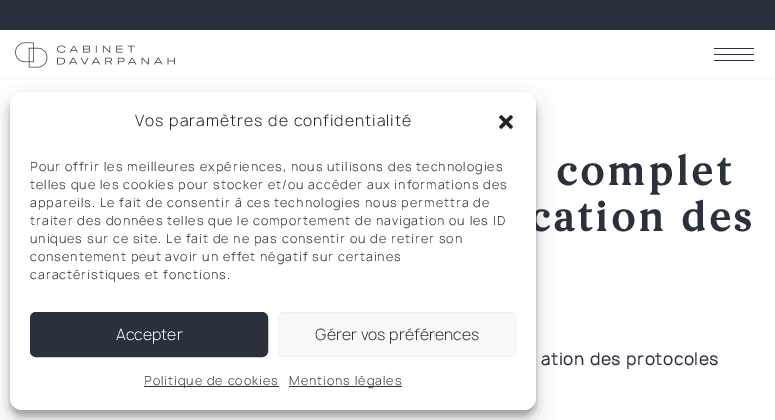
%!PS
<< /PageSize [775 420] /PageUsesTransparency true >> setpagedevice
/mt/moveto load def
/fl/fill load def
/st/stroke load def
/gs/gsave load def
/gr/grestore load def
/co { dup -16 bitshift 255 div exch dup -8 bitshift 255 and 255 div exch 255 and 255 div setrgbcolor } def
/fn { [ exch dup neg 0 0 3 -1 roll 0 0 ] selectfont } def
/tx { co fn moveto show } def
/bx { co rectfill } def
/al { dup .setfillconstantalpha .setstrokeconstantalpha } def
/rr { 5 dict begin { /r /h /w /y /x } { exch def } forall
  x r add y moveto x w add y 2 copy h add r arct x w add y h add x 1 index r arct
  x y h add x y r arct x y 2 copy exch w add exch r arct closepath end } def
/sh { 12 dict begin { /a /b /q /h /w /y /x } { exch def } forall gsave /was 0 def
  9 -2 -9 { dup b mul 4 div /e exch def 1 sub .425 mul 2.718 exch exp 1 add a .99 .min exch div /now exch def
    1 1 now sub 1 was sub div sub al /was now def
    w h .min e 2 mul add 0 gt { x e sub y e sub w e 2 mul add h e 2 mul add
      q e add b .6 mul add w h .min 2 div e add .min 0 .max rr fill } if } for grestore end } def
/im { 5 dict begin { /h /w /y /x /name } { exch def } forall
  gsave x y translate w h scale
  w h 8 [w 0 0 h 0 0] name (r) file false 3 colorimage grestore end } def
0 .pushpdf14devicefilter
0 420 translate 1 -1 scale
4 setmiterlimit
0 0 775 420 16#FFFFFF bx
16#000000 co
10 98 526 318 12 3 .23 sh
0 78 775 1 16#F9F7F4 bx
16#000000 co
10 102 526 318 12 10 .19 sh
0 0 775 30 16#2A303C bx
(media/2.raw) 15 42 160 26 im
714 48 40 1 16#2A303C bx
714 54 40 1 16#2A303C bx
714 60 40 1 16#2A303C bx
/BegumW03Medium-Bold 40 fn
556 185 mt 3 0 (complet) ashow
529 231 mt 3 0 (cation des) ashow
16#FFFFFF co
10 92 526 318 12 rr fl
/Manrope-Light 12 fn
16#222222 co
30 279 mt 1 0 (caractéristiques et fonctions.) ashow
30 261 mt 1 0 (consentement peut avoir un effet négatif sur certaines) ashow
30 243 mt 1 0 (uniques sur ce site. Le fait de ne pas consentir ou de retirer son) ashow
30 225 mt 1 0 (traiter des données telles que le comportement de navigation ou les ID) ashow
30 207 mt 1 0 (appareils. Le fait de consentir à ces technologies nous permettra de) ashow
30 189 mt 1 0 (telles que les cookies pour stocker et/ou accéder aux informations des) ashow
30 171 mt 1 0 (Pour offrir les meilleures expériences, nous utilisons des technologies) ashow
(media/1.raw) 499 115 14 14 im
289 386 113 1 16#2A303C bx
289 385 mt 1 0 (Mentions légales) ashow
144 386 135 1 16#2A303C bx
144 385 mt 1 0 (Politique de cookies) ashow
16#F9F9F9 co
278.5 312.5 237 44 5.5 rr gs fl gr
16#F2F2F2 co
st
(Gérer vos préférences) 315 340 /Manrope-Light 15 16#333333 tx
16#2A303C co
30.5 312.5 237 44 5.5 rr gs fl gr
st
(Accepter) 116 340 /Manrope-Light 15 16#FFFFFF tx
16#222222 co
135 126 mt 1 0 (Vos paramètres de confidentialité) ashow
/Manrope-Bold 16 fn
16#2A303C co
541 365 mt 1 0 (ation des protocoles) ashow
.poppdf14devicefilter showpage
